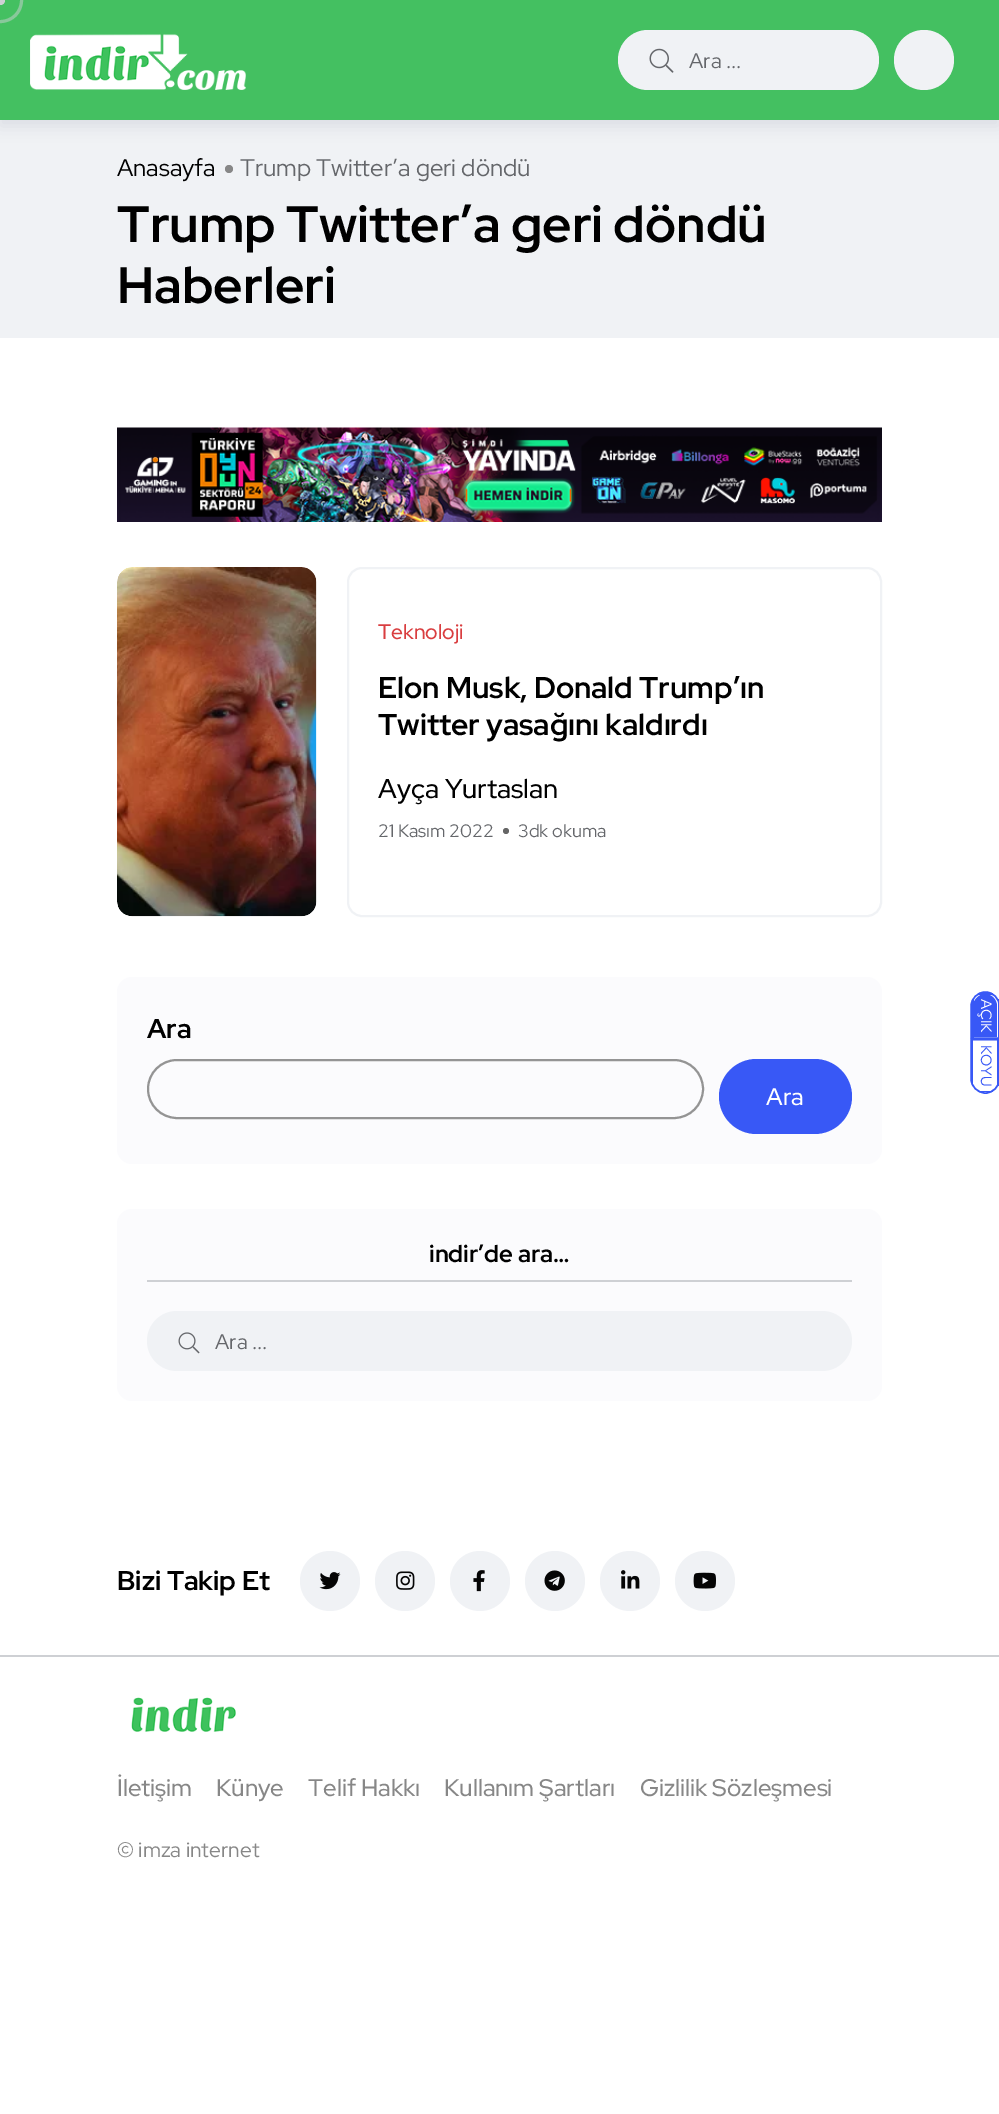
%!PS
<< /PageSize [999 2114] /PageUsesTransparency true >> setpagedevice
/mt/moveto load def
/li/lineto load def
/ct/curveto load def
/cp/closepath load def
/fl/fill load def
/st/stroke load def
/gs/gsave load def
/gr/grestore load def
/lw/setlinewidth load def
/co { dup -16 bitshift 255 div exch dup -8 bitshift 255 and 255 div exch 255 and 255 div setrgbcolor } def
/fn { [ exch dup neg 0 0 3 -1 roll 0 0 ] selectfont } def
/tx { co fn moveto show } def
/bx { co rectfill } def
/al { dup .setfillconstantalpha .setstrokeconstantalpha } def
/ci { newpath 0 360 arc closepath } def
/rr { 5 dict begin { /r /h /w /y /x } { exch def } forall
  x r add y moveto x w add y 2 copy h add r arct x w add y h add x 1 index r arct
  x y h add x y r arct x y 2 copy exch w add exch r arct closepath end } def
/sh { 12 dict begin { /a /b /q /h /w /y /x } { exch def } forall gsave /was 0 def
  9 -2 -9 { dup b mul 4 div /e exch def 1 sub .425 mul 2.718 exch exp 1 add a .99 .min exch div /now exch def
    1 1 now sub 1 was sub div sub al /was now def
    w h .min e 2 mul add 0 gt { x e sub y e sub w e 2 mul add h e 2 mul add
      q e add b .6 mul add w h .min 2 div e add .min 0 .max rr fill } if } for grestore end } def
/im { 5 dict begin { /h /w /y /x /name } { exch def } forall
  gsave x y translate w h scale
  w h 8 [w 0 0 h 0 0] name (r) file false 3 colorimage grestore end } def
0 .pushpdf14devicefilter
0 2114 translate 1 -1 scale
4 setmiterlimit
0 0 999 2114 16#FFFFFF bx
0 120 999 218 16#F0F2F5 bx
16#252F3F co
0 6 999 120 0 7.5 .1 sh
0 0 999 120 16#44C061 bx
16#89C89B co
3 lw
.5 .5 21 ci st
16#CED0D4 co
.5 .5 4.5 ci fl
(media/1.raw) 30 34 216 56 im
16#F0F2F5 co
618 30 261 60 30 rr fl
(media/2.raw) 649 48 25 25 im
924 60 30 ci fl
16#878787 co
229 169 4 ci fl
(media/3.raw) 117 427 765 95 im
(media/4.raw) 117 567 200 350 im
16#F0F2F5 co
2 lw
348 568 533 348 14 rr st
16#666666 co
506 831 3 ci fl
16#FBFBFD co
117 977 765 187 15 rr fl
16#949494 co
148 1060 555 58 29 rr st
16#3858F6 co
719 1059 133 75 37.5 rr fl
16#FBFBFD co
117 1209 765 192 15 rr fl
147 1280 705 2 16#CED0D4 bx
16#F0F2F5 co
147 1311 705 60 30 rr fl
(media/5.raw) 178 1332 22 22 im
16#3858F6 co
997 1006 mt 997 1037 li 973 1037 li 973 1006 li 973 1000 979 994 985 994 ct 992 994 997 1000 997 1006 ct cp fl
1.5 lw
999.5 1006.5 mt 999.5 1038 li 971 1038 li 971 1006.5 li 971 998.5 977.5 992 985.5 992 ct 993 992 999.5 998.5 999.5 1006.5 ct cp st
998 999 1 40 16#3858F6 bx
972 999 2 40 16#3858F6 bx
978 993 15 2 16#3858F6 bx
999.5 1039.5 mt 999.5 1078.5 li 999.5 1086.5 993 1093 985.5 1093 ct 977.5 1093 971 1086.5 971 1078.5 ct 971 1039.5 li cp st
997 1039 2 47 16#3858F6 bx
978 1091 15 1 16#3858F6 bx
972 1039 1 47 16#3858F6 bx
16#F0F2F5 co
330 1581 30 ci fl
(media/6.raw) 319 1572 22 18 im
405 1581 30 ci fl
(media/7.raw) 396 1571 19 19 im
480 1581 30 ci fl
(media/8.raw) 473 1570 12 22 im
555 1581 30 ci fl
(media/9.raw) 544 1570 21 21 im
630 1581 30 ci fl
(media/10.raw) 621 1570 19 19 im
705 1581 30 ci fl
(media/11.raw) 693 1572 23 17 im
0 1655 999 2 16#CED0D4 bx
(media/12.raw) 131 1697 105 35 im
(Ara ...) 689 68 /RedHatDisplay-Regular 21 16#65676B tx
(Anasayfa) 117 176 /RedHatDisplay-Regular 24 16#000000 tx
(Trump Twitter’a geri döndü) 240 176 /RedHatDisplay-Regular 24 16#65676B tx
(Trump Twitter’a geri döndü) 117 242 /RedHatDisplay-Bold 51 16#000000 tx
(Haberleri) 117 303 /RedHatDisplay-Bold 51 16#000000 tx
(Teknoloji) 378 639 /RedHatDisplay-Medium 21 16#D93E40 tx
(Elon Musk, Donald Trump’ın) 378 698 /RedHatDisplay-Bold 30 16#000000 tx
(Twitter yasağını kaldırdı) 378 735 /RedHatDisplay-Bold 30 16#000000 tx
(Ayça Yurtaslan) 378 798 /RedHatDisplay-Medium 27 16#000000 tx
(21 Kasım 2022) 378 837 /RedHatDisplay-Regular 18 16#65676B tx
(3dk okuma) 518 837 /RedHatDisplay-Regular 18 16#65676B tx
(Ara) 147 1038 /RedHatDisplay-Bold 27 16#000000 tx
(Ara) 766 1105 /RedHatDisplay-Medium 24 16#FFFFFF tx
(indir’de ara…) 429 1262 /RedHatDisplay-Bold 24 16#000000 tx
(Ara ...) 215 1349 /RedHatDisplay-Regular 21 16#65676B tx
/RedHatDisplay-Regular 15 fn
16#FFFFFF co
gs 981 999 translate 90 rotate 0 0 mt (AÇIK) show gr
16#3858F6 co
gs 981 1045 translate 90 rotate 0 0 mt (KOYU) show gr
(Bizi Takip Et) 117 1590 /RedHatDisplay-Bold 27 16#000000 tx
(İletişim) 117 1796 /RedHatDisplay-Medium 24 16#878787 tx
(Künye) 216 1796 /RedHatDisplay-Medium 24 16#878787 tx
(Telif Hakkı) 308 1796 /RedHatDisplay-Medium 24 16#878787 tx
(Kullanım Şartları) 444 1796 /RedHatDisplay-Medium 24 16#878787 tx
(Gizlilik Sözleşmesi) 640 1796 /RedHatDisplay-Medium 24 16#878787 tx
(© imza internet) 117 1857 /RedHatDisplay-Regular 21 16#878787 tx
.poppdf14devicefilter showpage
